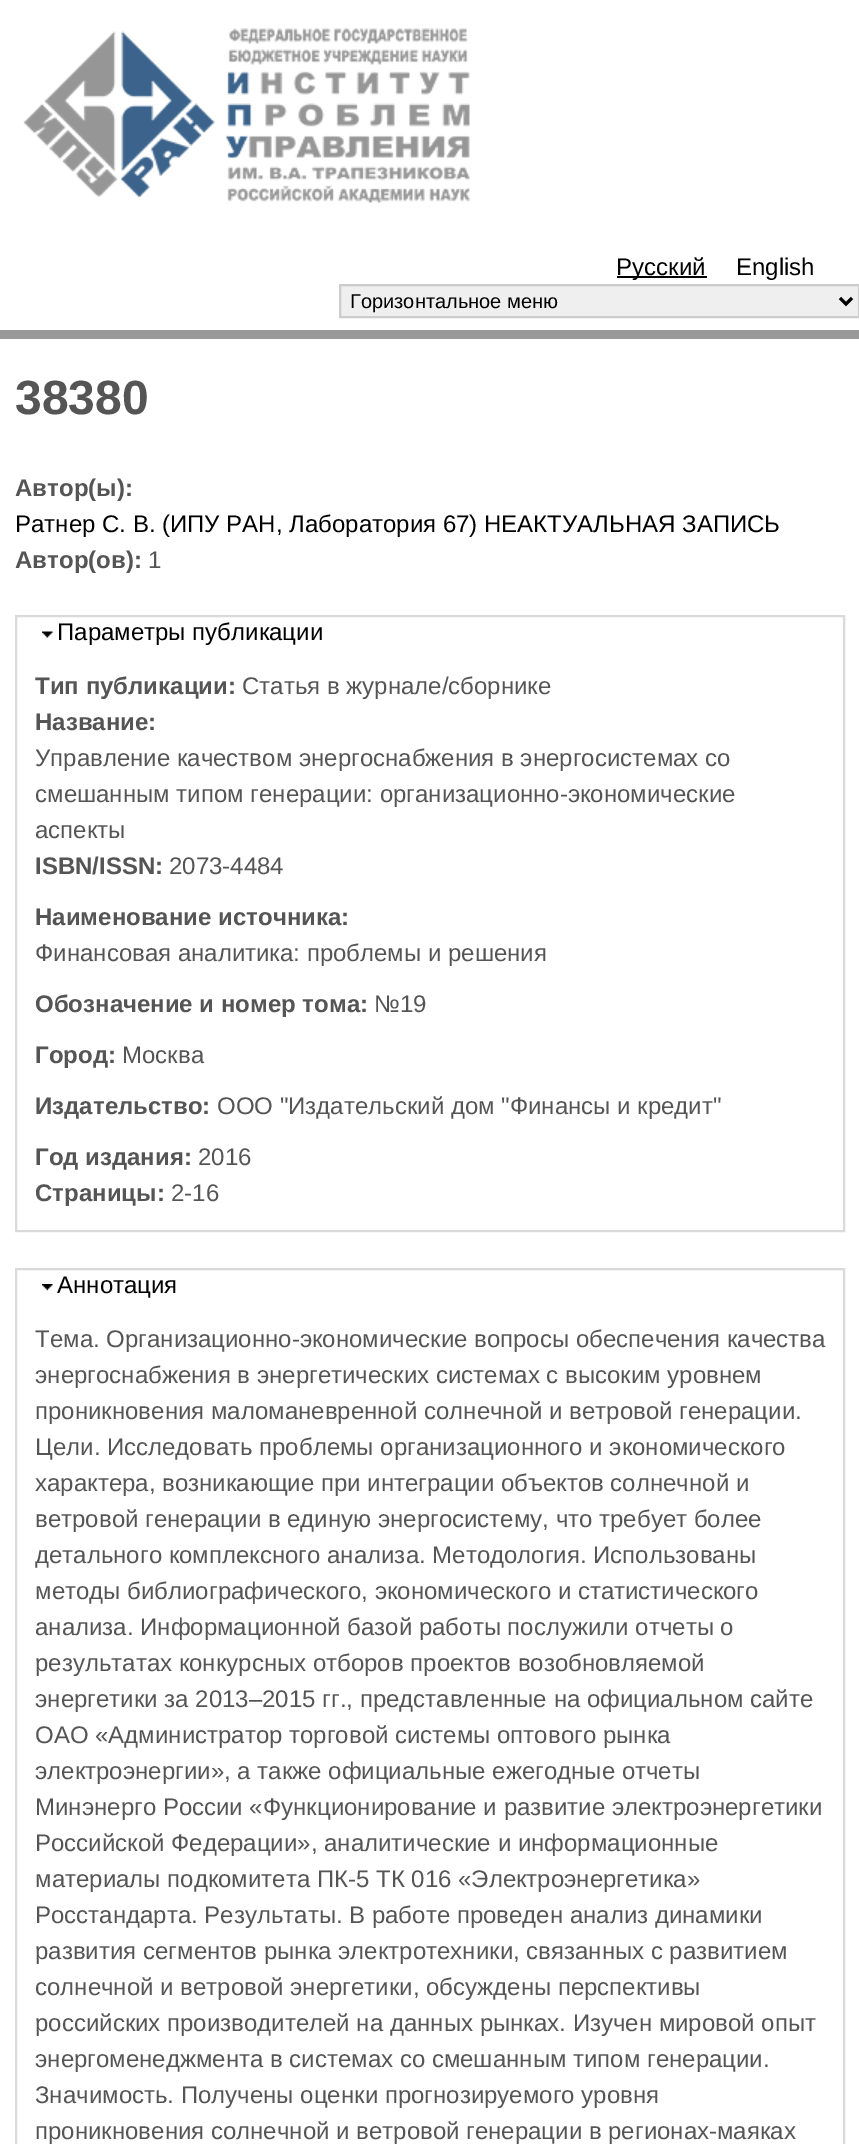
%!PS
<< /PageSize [859 2144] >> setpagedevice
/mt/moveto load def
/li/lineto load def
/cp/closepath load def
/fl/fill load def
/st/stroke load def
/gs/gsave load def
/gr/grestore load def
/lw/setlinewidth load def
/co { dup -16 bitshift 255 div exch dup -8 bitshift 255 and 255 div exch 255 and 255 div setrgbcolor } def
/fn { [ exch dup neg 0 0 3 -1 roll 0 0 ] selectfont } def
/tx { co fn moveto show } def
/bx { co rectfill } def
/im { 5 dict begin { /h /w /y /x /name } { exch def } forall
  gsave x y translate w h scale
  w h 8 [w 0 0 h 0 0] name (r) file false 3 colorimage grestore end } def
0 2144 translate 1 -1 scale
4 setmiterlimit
0 0 859 2144 16#FFFFFF bx
(media/1.raw) 23 28 447 175 im
617 276 90 2 16#000000 bx
0 330 859 9 16#999999 bx
16#EFEFEF co
340 285 mt 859 285 li 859 317 li 340 317 li cp gs fl gr
16#CCCCCC co
2 lw
st
16#000000 co
3 lw
840 298 mt 846 304 li 852 298 li st
16#DADADA co
2 lw
16 616 828 615 rectstroke
(media/2.raw) 42 631 11 7 im
16 1269 828 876 rectstroke
(media/3.raw) 42 1284 11 7 im
(Русский) 616 275 /LiberationSans-Regular 24 16#000000 tx
(English) 736 275 /LiberationSans-Regular 24 16#000000 tx
(Горизонтальное меню) 350 308 /LiberationSans-Regular 20 16#000000 tx
(38380) 15 414 /LiberationSans-Bold 48 16#555555 tx
(Автор\(ы\):) 15 496 /LiberationSans-Bold 24 16#555555 tx
(Ратнер С. В. \(ИПУ РАН, Лаборатория 67\) НЕАКТУАЛЬНАЯ ЗАПИСЬ) 15 532 /LiberationSans-Regular 24 16#000000 tx
(Автор\(ов\):) 15 568 /LiberationSans-Bold 24 16#555555 tx
(1) 148 568 /LiberationSans-Regular 24 16#555555 tx
(Параметры публикации) 57 640 /LiberationSans-Regular 24 16#000000 tx
(Тип публикации:) 35 694 /LiberationSans-Bold 24 16#555555 tx
(Статья в журнале/сборнике) 242 694 /LiberationSans-Regular 24 16#555555 tx
(Название:) 35 730 /LiberationSans-Bold 24 16#555555 tx
(Управление качеством энергоснабжения в энергосистемах со) 35 766 /LiberationSans-Regular 24 16#555555 tx
(смешанным типом генерации: организационно-экономические) 35 802 /LiberationSans-Regular 24 16#555555 tx
(аспекты) 35 838 /LiberationSans-Regular 24 16#555555 tx
(ISBN/ISSN:) 35 874 /LiberationSans-Bold 24 16#555555 tx
(2073-4484) 169 874 /LiberationSans-Regular 24 16#555555 tx
(Наименование источника:) 35 925 /LiberationSans-Bold 24 16#555555 tx
(Финансовая аналитика: проблемы и решения) 35 961 /LiberationSans-Regular 24 16#555555 tx
(Обозначение и номер тома:) 35 1012 /LiberationSans-Bold 24 16#555555 tx
(№19) 374 1012 /LiberationSans-Regular 24 16#555555 tx
(Город:) 35 1063 /LiberationSans-Bold 24 16#555555 tx
(Москва) 122 1063 /LiberationSans-Regular 24 16#555555 tx
(Издательство:) 35 1114 /LiberationSans-Bold 24 16#555555 tx
(ООО "Издательский дом "Финансы и кредит") 217 1114 /LiberationSans-Regular 24 16#555555 tx
(Год издания:) 35 1165 /LiberationSans-Bold 24 16#555555 tx
(2016) 198 1165 /LiberationSans-Regular 24 16#555555 tx
(Страницы:) 35 1201 /LiberationSans-Bold 24 16#555555 tx
(2-16) 171 1201 /LiberationSans-Regular 24 16#555555 tx
(Аннотация) 57 1293 /LiberationSans-Regular 24 16#000000 tx
(Тема. Организационно-экономические вопросы обеспечения качества) 35 1347 /LiberationSans-Regular 24 16#555555 tx
(энергоснабжения в энергетических системах с высоким уровнем) 35 1383 /LiberationSans-Regular 24 16#555555 tx
(проникновения маломаневренной солнечной и ветровой генерации.) 35 1419 /LiberationSans-Regular 24 16#555555 tx
(Цели. Исследовать проблемы организационного и экономического) 35 1455 /LiberationSans-Regular 24 16#555555 tx
(характера, возникающие при интеграции объектов солнечной и) 35 1491 /LiberationSans-Regular 24 16#555555 tx
(ветровой генерации в единую энергосистему, что требует более) 35 1527 /LiberationSans-Regular 24 16#555555 tx
(детального комплексного анализа. Методология. Использованы) 35 1563 /LiberationSans-Regular 24 16#555555 tx
(методы библиографического, экономического и статистического) 35 1599 /LiberationSans-Regular 24 16#555555 tx
(анализа. Информационной базой работы послужили отчеты о) 35 1635 /LiberationSans-Regular 24 16#555555 tx
(результатах конкурсных отборов проектов возобновляемой) 35 1671 /LiberationSans-Regular 24 16#555555 tx
(энергетики за 2013–2015 гг., представленные на официальном сайте) 35 1707 /LiberationSans-Regular 24 16#555555 tx
(ОАО «Администратор торговой системы оптового рынка) 35 1743 /LiberationSans-Regular 24 16#555555 tx
(электроэнергии», а также официальные ежегодные отчеты) 35 1779 /LiberationSans-Regular 24 16#555555 tx
(Минэнерго России «Функционирование и развитие электроэнергетики) 35 1815 /LiberationSans-Regular 24 16#555555 tx
(Российской Федерации», аналитические и информационные) 35 1851 /LiberationSans-Regular 24 16#555555 tx
(материалы подкомитета ПК-5 ТК 016 «Электроэнергетика») 35 1887 /LiberationSans-Regular 24 16#555555 tx
(Росстандарта. Результаты. В работе проведен анализ динамики) 35 1923 /LiberationSans-Regular 24 16#555555 tx
(развития сегментов рынка электротехники, связанных с развитием) 35 1959 /LiberationSans-Regular 24 16#555555 tx
(солнечной и ветровой энергетики, обсуждены перспективы) 35 1995 /LiberationSans-Regular 24 16#555555 tx
(российских производителей на данных рынках. Изучен мировой опыт) 35 2031 /LiberationSans-Regular 24 16#555555 tx
(энергоменеджмента в системах со смешанным типом генерации.) 35 2067 /LiberationSans-Regular 24 16#555555 tx
(Значимость. Получены оценки прогнозируемого уровня) 35 2103 /LiberationSans-Regular 24 16#555555 tx
(проникновения солнечной и ветровой генерации в регионах-маяках) 35 2139 /LiberationSans-Regular 24 16#555555 tx
showpage
